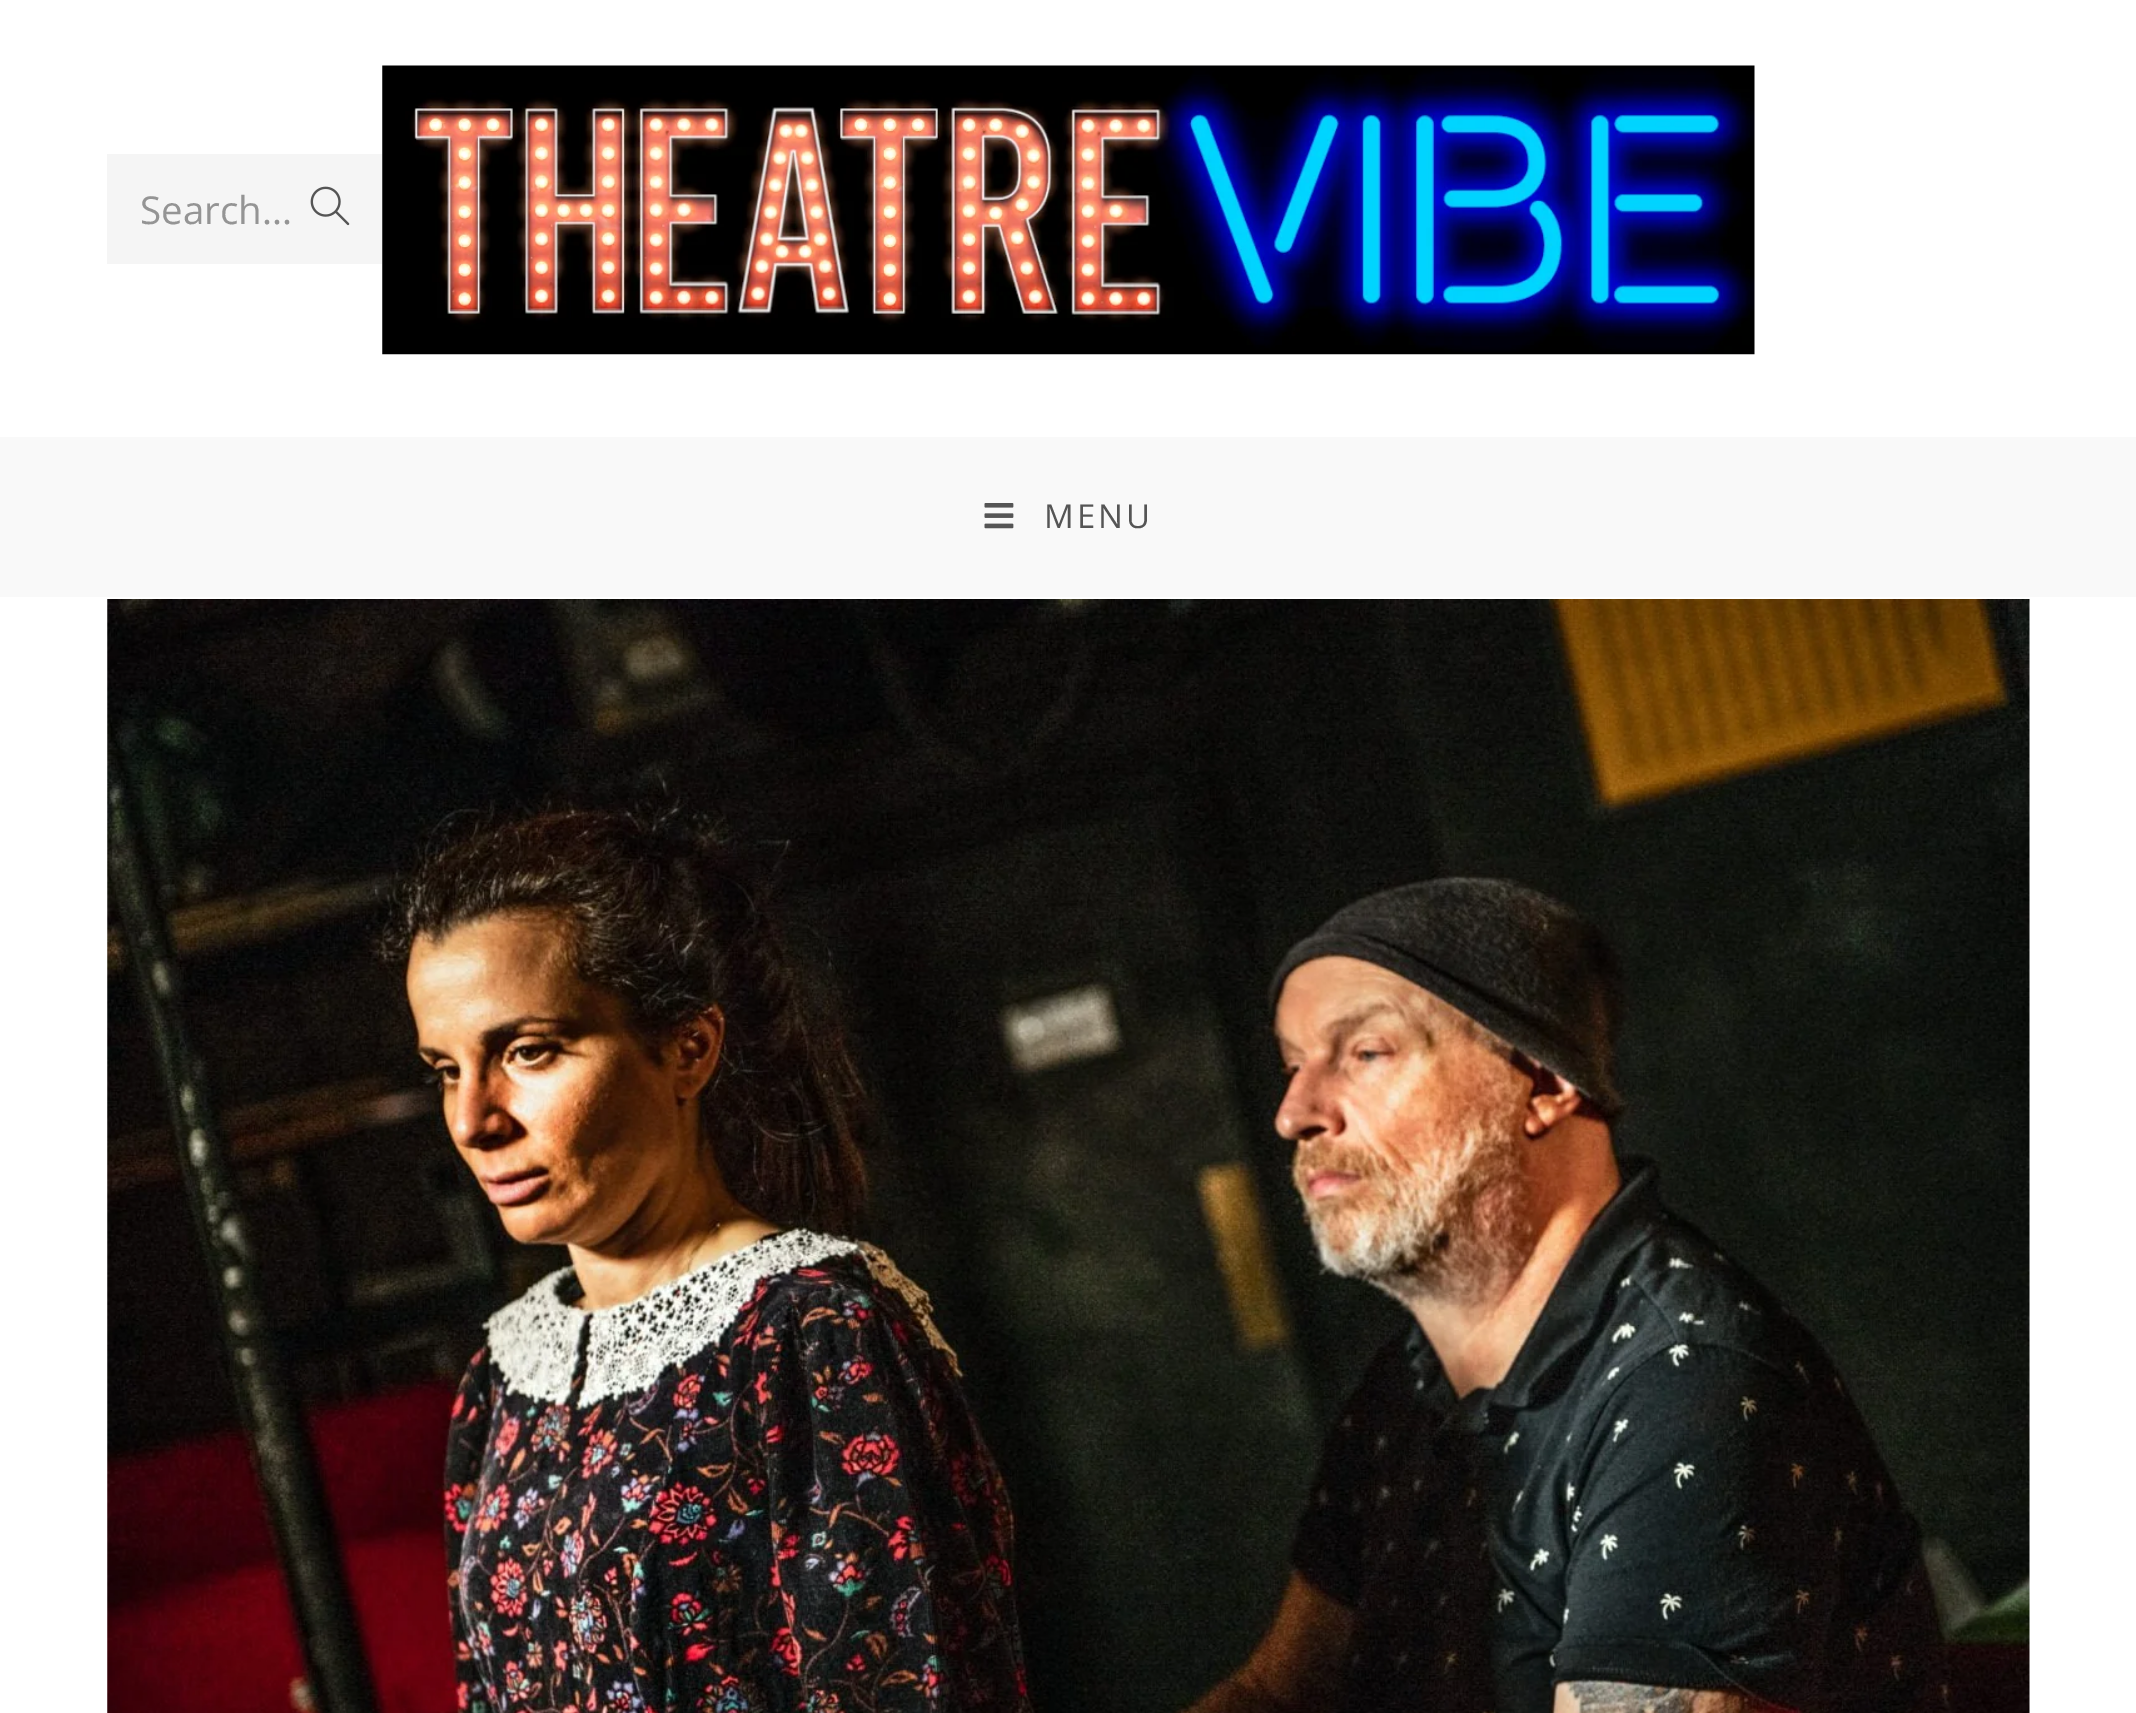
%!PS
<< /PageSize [2136 1713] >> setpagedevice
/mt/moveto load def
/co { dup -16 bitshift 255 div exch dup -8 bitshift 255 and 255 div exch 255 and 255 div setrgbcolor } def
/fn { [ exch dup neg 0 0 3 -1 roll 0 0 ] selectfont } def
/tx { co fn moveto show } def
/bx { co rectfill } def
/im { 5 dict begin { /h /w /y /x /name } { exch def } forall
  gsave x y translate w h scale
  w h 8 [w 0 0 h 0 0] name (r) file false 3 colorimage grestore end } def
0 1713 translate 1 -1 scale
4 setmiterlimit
0 0 2136 1713 16#FFFFFF bx
107 154 275 110 16#F5F5F5 bx
(media/1.raw) 310 186 40 40 im
(media/2.raw) 382 65 1373 290 im
0 437 2136 160 16#F9F9F9 bx
(media/3.raw) 984 503 30 26 im
(media/4.raw) 107 599 1923 1114 im
(Search...) 140 224 /OpenSans-Regular 38.5 16#949494 tx
/OpenSans-Regular 33 fn
16#555555 co
1044 528 mt 3 0 (MENU) ashow
showpage
